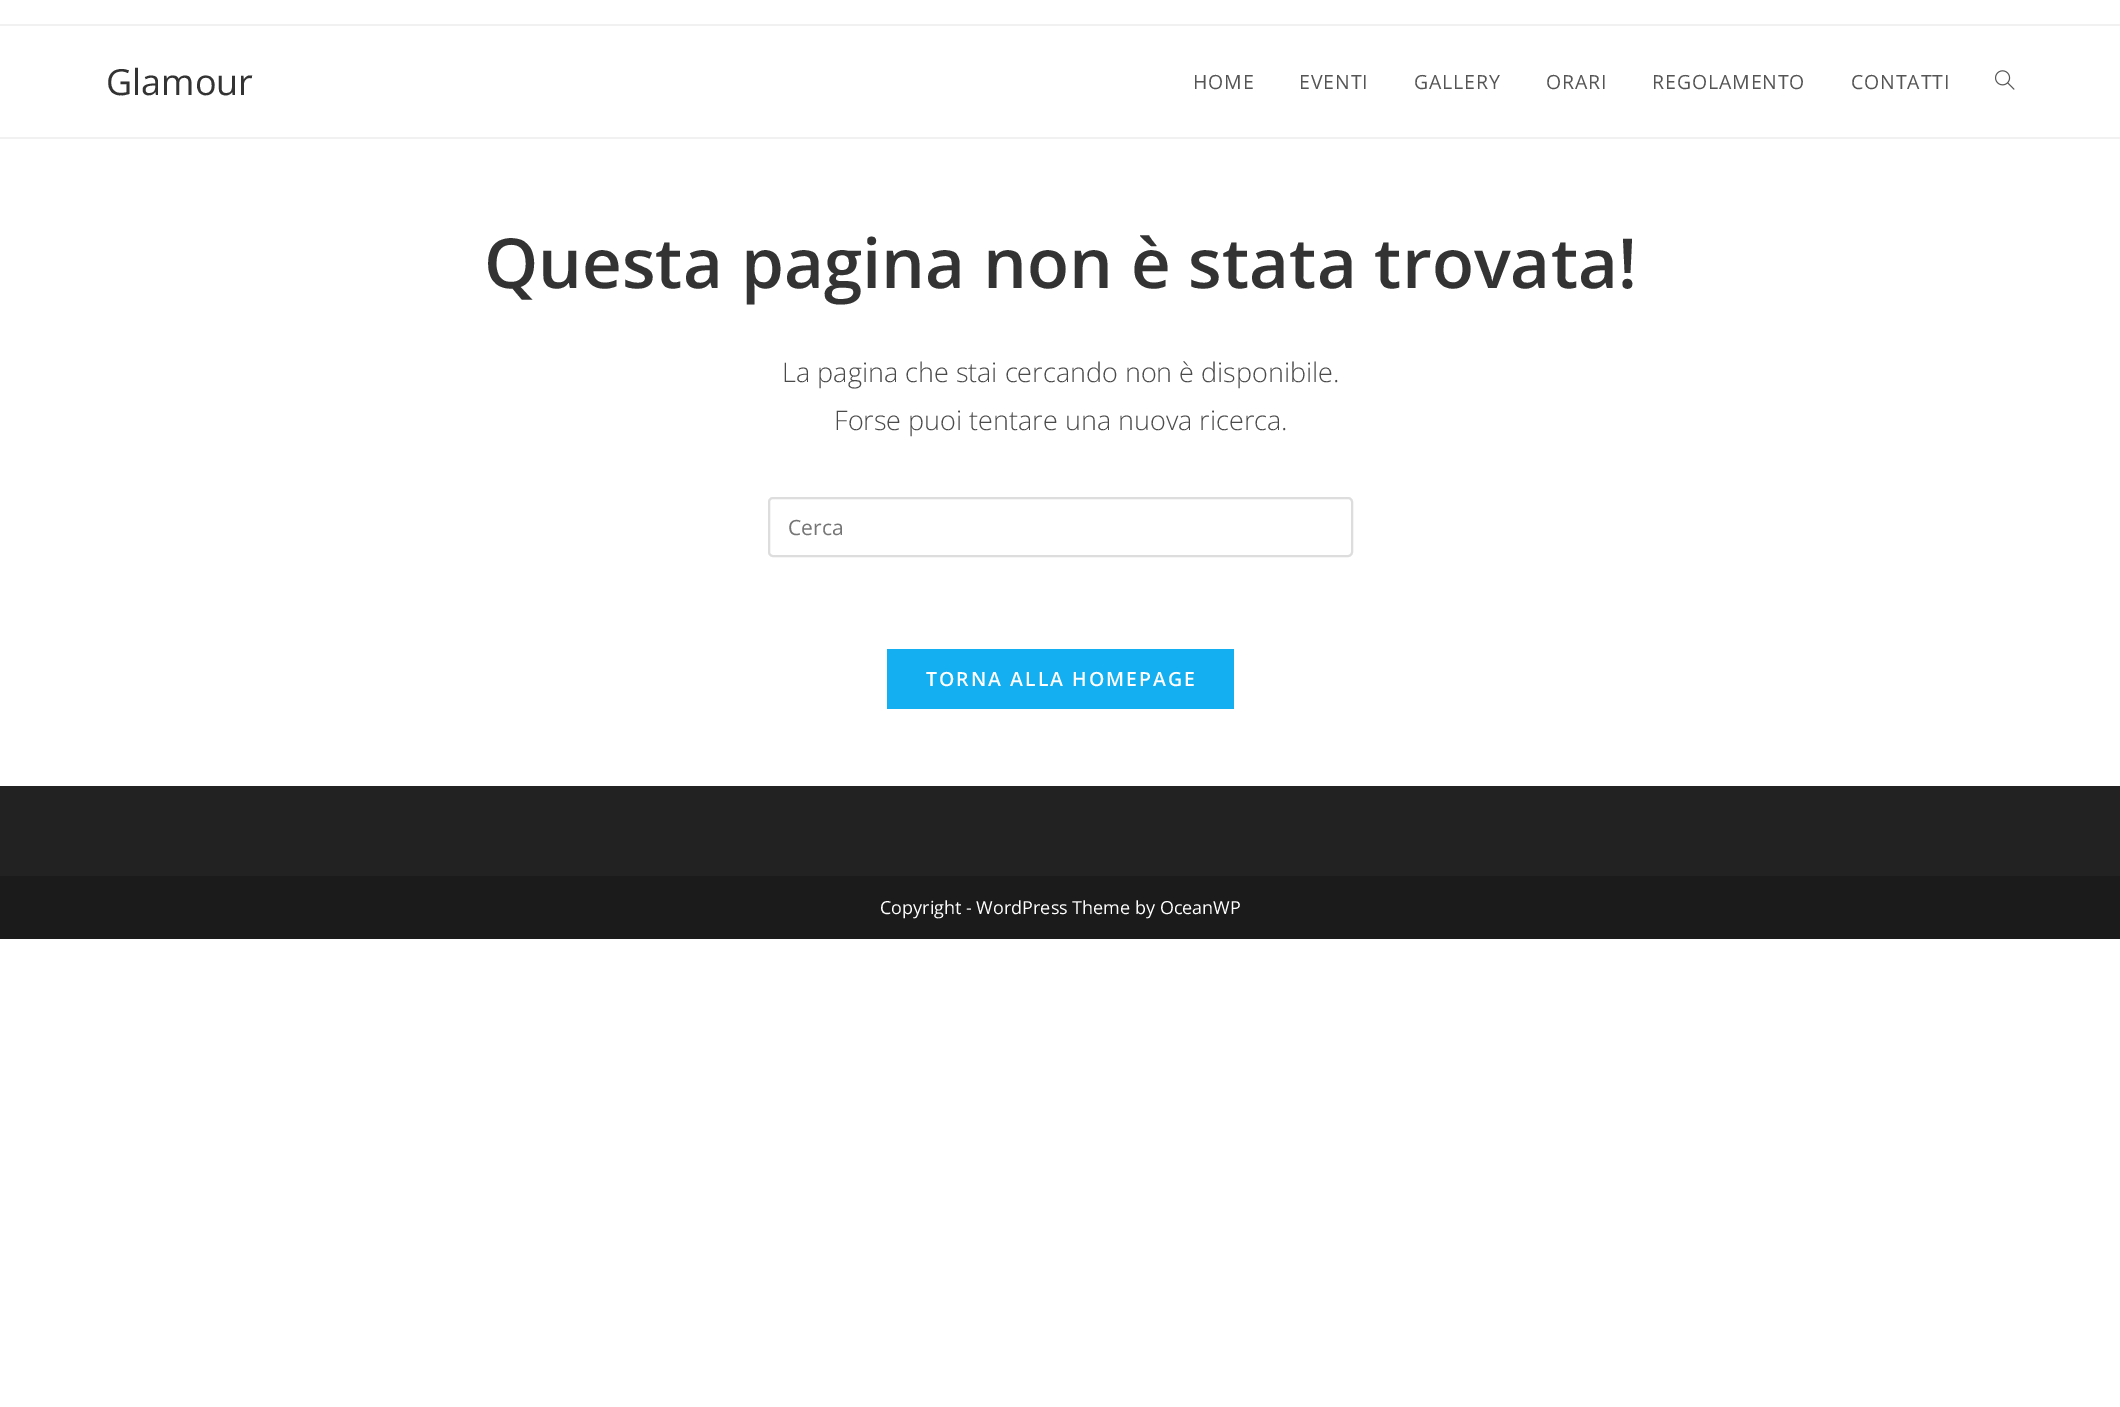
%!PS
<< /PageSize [2120 1407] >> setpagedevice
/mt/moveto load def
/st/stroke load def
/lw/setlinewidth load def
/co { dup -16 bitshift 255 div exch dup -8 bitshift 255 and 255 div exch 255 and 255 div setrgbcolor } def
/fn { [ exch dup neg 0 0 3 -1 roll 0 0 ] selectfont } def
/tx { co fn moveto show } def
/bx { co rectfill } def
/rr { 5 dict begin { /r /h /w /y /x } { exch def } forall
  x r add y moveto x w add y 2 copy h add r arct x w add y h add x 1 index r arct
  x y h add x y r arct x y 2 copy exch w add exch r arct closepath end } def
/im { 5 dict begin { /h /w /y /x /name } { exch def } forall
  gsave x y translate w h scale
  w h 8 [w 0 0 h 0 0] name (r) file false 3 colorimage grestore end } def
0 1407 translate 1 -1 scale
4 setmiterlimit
0 0 2120 1407 16#FFFFFF bx
0 24 2120 2 16#F1F1F1 bx
0 137 2120 2 16#F1F1F1 bx
(media/1.raw) 1995 70 20 20 im
16#DDDDDD co
2 lw
769 498 583 58 4 rr st
887 649 347 60 16#13AFF0 bx
0 786 2120 90 16#222222 bx
0 876 2120 63 16#1B1B1B bx
(Glamour) 106 95 /OpenSans-Regular 36 16#333333 tx
/OpenSans-Regular 19.5 fn
16#555555 co
1193 89 mt .9 0 (HOME) ashow
1299 89 mt .9 0 (EVENTI) ashow
1414 89 mt .9 0 (GALLERY) ashow
1546 89 mt .9 0 (ORARI) ashow
1652 89 mt .9 0 (REGOLAMENTO) ashow
1851 89 mt .9 0 (CONTATTI) ashow
(Questa pagina non è stata trovata!) 484 288 /OpenSans-SemiBold 69 16#333333 tx
(La pagina che stai cercando non è disponibile.) 782 382 /OpenSans-Light 27 16#4A4A4A tx
(Forse puoi tentare una nuova ricerca.) 834 430 /OpenSans-Light 27 16#4A4A4A tx
(Cerca) 788 535 /OpenSans-Regular 21 16#757575 tx
/OpenSans-SemiBold 19.5 fn
16#FFFFFF co
926 686 mt 2 0 (TORNA ALLA HOMEPAGE) ashow
(Copyright - WordPress Theme by OceanWP) 880 914 /OpenSans-Regular 18 16#FFFFFF tx
showpage
